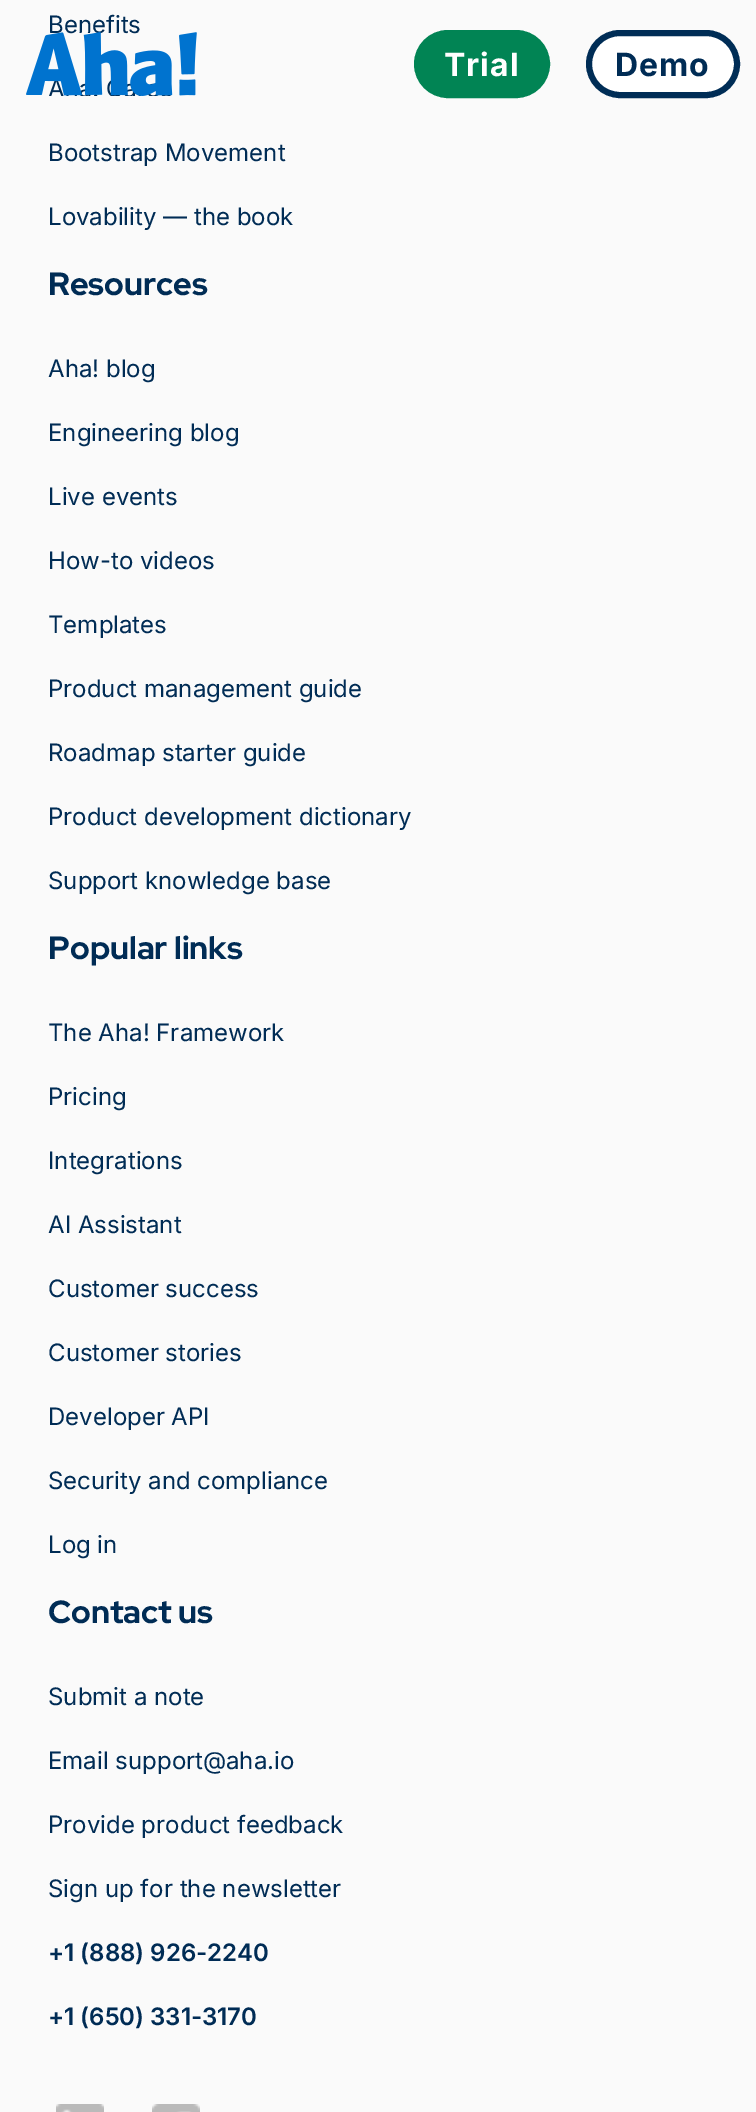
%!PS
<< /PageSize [756 2112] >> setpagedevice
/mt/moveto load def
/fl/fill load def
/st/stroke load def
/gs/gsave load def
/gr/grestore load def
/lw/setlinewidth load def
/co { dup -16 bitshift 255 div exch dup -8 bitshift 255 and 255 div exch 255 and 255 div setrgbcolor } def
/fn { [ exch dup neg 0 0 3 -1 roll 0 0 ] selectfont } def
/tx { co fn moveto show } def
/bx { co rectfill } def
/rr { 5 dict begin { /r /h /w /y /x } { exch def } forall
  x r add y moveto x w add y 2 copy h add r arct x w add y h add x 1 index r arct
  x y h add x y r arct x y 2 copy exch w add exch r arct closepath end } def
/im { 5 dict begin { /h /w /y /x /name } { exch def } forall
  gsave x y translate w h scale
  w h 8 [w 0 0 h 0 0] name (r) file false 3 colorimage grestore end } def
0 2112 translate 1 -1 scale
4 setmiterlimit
0 0 756 2112 16#FAFAFA bx
(media/1.raw) 56 2104 48 8 im
(media/2.raw) 152 2104 48 8 im
16#018454 co
417 33 130 62 31 rr gs fl gr
6 lw
st
16#FFFFFF co
589 33 148 62 31 rr gs fl gr
16#002D56 co
st
(Benefits) 48 33 /Inter-Regular 24 16#002C55 tx
(Bootstrap Movement) 48 161 /Inter-Regular 24 16#002C55 tx
(Lovability — the book) 48 225 /Inter-Regular 24 16#002C55 tx
(Resources) 48 295 /RedHatDisplay-ExtraBold 32 16#002C55 tx
(Aha! blog) 48 377 /Inter-Regular 24 16#002C55 tx
(Engineering blog) 48 441 /Inter-Regular 24 16#002C55 tx
(Live events) 48 505 /Inter-Regular 24 16#002C55 tx
(How-to videos) 48 569 /Inter-Regular 24 16#002C55 tx
(Templates) 48 633 /Inter-Regular 24 16#002C55 tx
(Product management guide) 48 697 /Inter-Regular 24 16#002C55 tx
(Roadmap starter guide) 48 761 /Inter-Regular 24 16#002C55 tx
(Product development dictionary) 48 825 /Inter-Regular 24 16#002C55 tx
(Support knowledge base) 48 889 /Inter-Regular 24 16#002C55 tx
(Popular links) 48 959 /RedHatDisplay-ExtraBold 32 16#002C55 tx
(The Aha! Framework) 48 1041 /Inter-Regular 24 16#002C55 tx
(Pricing) 48 1105 /Inter-Regular 24 16#002C55 tx
(Integrations) 48 1169 /Inter-Regular 24 16#002C55 tx
(AI Assistant) 48 1233 /Inter-Regular 24 16#002C55 tx
(Customer success) 48 1297 /Inter-Regular 24 16#002C55 tx
(Customer stories) 48 1361 /Inter-Regular 24 16#002C55 tx
(Developer API) 48 1425 /Inter-Regular 24 16#002C55 tx
(Security and compliance) 48 1489 /Inter-Regular 24 16#002C55 tx
(Log in) 48 1553 /Inter-Regular 24 16#002C55 tx
(Contact us) 48 1623 /RedHatDisplay-ExtraBold 32 16#002C55 tx
(Submit a note) 48 1705 /Inter-Regular 24 16#002C55 tx
(Email support@aha.io) 48 1769 /Inter-Regular 24 16#002C55 tx
(Provide product feedback) 48 1833 /Inter-Regular 24 16#002C55 tx
(Sign up for the newsletter) 48 1897 /Inter-Regular 24 16#002C55 tx
(+1 \(888\) 926-2240) 48 1961 /Inter-SemiBold 24 16#002C55 tx
(+1 \(650\) 331-3170) 48 2025 /Inter-SemiBold 24 16#002C55 tx
(media/3.raw) 26 32 171 64 im
/Inter-Bold 32 fn
16#FFFFFF co
444 76 mt 1 0 (Trial) ashow
16#002C55 co
615 76 mt 1 0 (Demo) ashow
showpage
